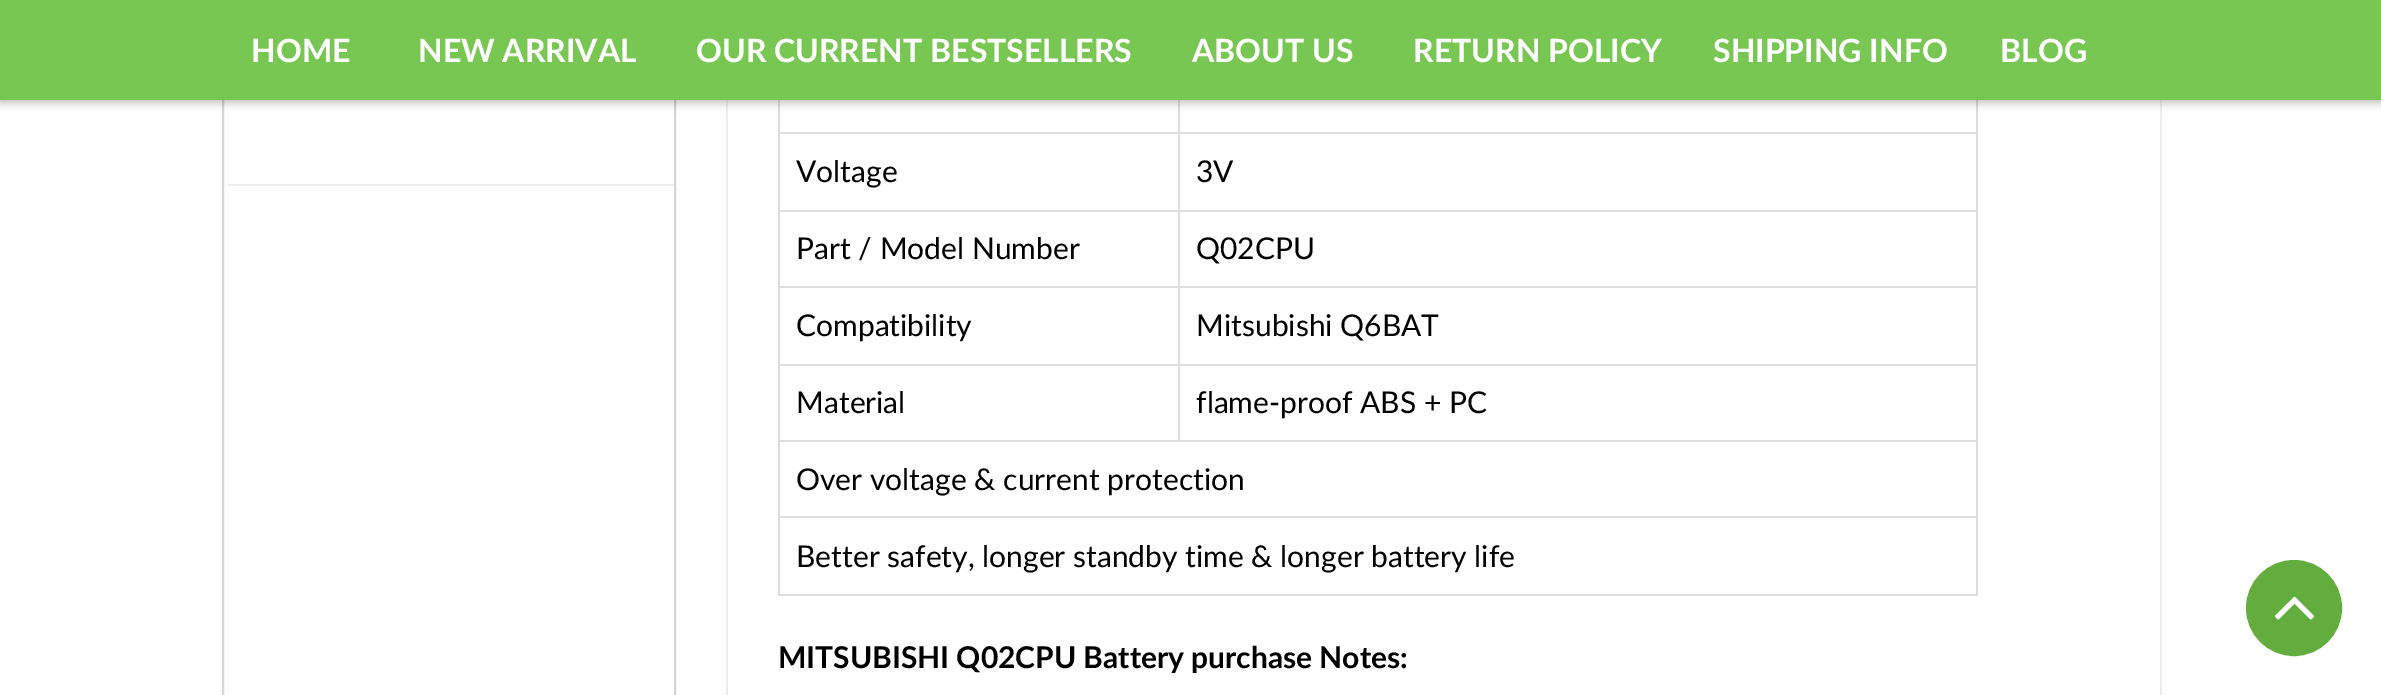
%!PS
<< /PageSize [2381 695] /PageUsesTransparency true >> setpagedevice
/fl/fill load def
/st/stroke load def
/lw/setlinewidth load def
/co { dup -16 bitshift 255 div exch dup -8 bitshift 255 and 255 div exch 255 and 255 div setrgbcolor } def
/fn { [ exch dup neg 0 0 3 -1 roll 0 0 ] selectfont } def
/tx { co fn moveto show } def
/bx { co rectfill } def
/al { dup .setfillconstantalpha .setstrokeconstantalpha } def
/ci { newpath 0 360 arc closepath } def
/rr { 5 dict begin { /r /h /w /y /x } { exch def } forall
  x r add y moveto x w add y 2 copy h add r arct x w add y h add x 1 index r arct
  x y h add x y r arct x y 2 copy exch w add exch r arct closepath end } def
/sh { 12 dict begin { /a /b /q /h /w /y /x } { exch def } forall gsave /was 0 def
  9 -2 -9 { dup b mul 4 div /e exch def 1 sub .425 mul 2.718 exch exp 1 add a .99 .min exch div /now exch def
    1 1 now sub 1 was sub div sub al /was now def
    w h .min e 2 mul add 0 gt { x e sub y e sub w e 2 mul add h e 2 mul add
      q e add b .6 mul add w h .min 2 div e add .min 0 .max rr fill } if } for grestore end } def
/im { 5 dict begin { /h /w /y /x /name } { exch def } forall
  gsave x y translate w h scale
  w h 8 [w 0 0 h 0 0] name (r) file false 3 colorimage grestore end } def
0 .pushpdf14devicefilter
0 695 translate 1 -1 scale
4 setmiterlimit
0 0 2381 695 16#FFFFFF bx
16#D7D7D7 co
2 lw
223 -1 452 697 rectstroke
2160 100 2 595 16#EDEDED bx
726 100 2 595 16#EDEDED bx
1976 100 2 496 16#DDDDDD bx
778 594 1200 2 16#DDDDDD bx
778 100 2 496 16#DDDDDD bx
1178 132 800 2 16#DDDDDD bx
1178 210 800 2 16#DDDDDD bx
1178 286 800 2 16#DDDDDD bx
1178 364 800 2 16#DDDDDD bx
778 440 1200 2 16#DDDDDD bx
1178 364 2 78 16#DDDDDD bx
778 364 402 2 16#DDDDDD bx
1178 286 2 80 16#DDDDDD bx
778 286 402 2 16#DDDDDD bx
1178 210 2 78 16#DDDDDD bx
778 210 402 2 16#DDDDDD bx
1178 132 2 80 16#DDDDDD bx
778 132 402 2 16#DDDDDD bx
1178 100 2 34 16#DDDDDD bx
16#000000 co
0 2 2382 100 0 5 .3 sh
0 0 2381 100 16#79C753 bx
228 184 446 2 16#EDEDED bx
778 516 1200 2 16#DDDDDD bx
16#62AD3E co
8 lw
2294 608 44 ci st
2294 608 44 ci fl
(media/1.raw) 2275 596 39 24 im
(HOME) 251 62 /Lato-Bold 32 16#FFFFFF tx
(NEW ARRIVAL) 418 62 /Lato-Bold 32 16#FFFFFF tx
(OUR CURRENT BESTSELLERS) 696 62 /Lato-Bold 32 16#FFFFFF tx
(ABOUT US) 1192 62 /Lato-Bold 32 16#FFFFFF tx
(RETURN POLICY) 1413 62 /Lato-Bold 32 16#FFFFFF tx
(SHIPPING INFO) 1713 62 /Lato-Bold 32 16#FFFFFF tx
(BLOG) 2000 62 /Lato-Bold 32 16#FFFFFF tx
(Voltage) 796 182 /Lato-Regular 30 16#000000 tx
(3V) 1196 182 /Lato-Regular 30 16#000000 tx
(Part / Model Number) 796 259 /Lato-Regular 30 16#000000 tx
(Q02CPU) 1196 259 /Lato-Regular 30 16#000000 tx
(Compatibility) 796 336 /Lato-Regular 30 16#000000 tx
(Mitsubishi Q6BAT) 1196 336 /Lato-Regular 30 16#000000 tx
(Material) 796 413 /Lato-Regular 30 16#000000 tx
(flame-proof ABS + PC) 1196 413 /Lato-Regular 30 16#000000 tx
(Over voltage & current protection) 796 490 /Lato-Regular 30 16#000000 tx
(Better safety, longer standby time & longer battery life) 796 567 /Lato-Regular 30 16#000000 tx
(MITSUBISHI Q02CPU Battery purchase Notes:) 778 668 /Lato-Bold 30 16#000000 tx
.poppdf14devicefilter showpage
